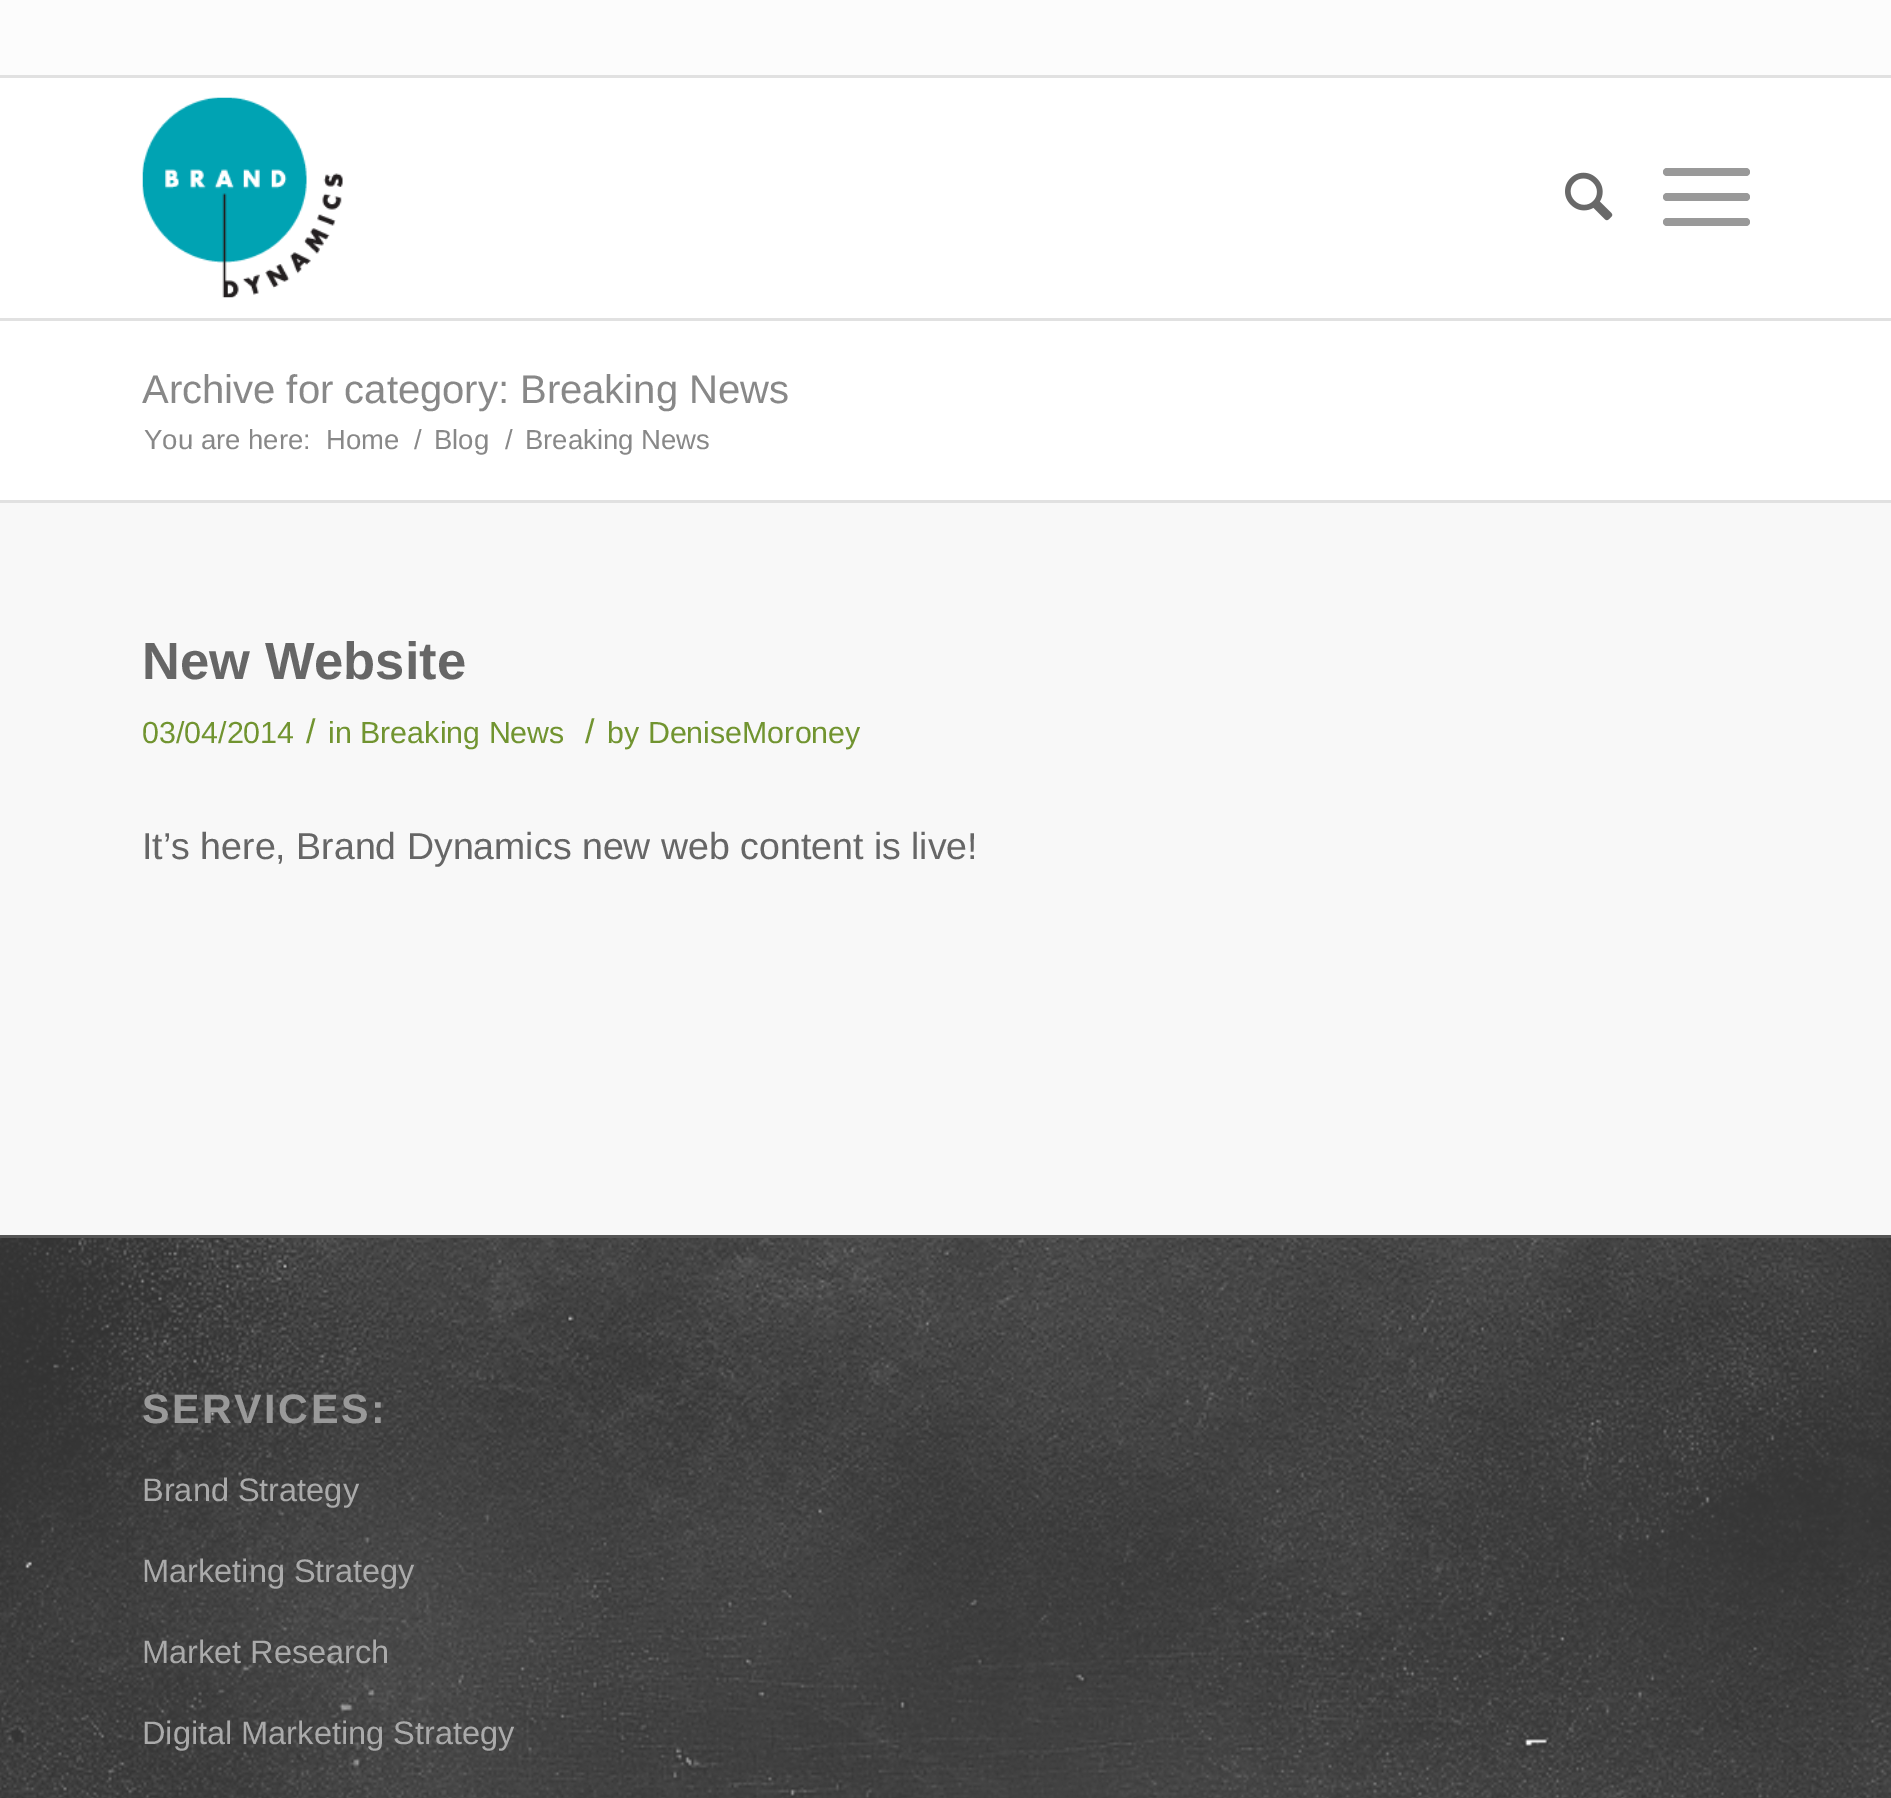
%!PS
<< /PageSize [1891 1798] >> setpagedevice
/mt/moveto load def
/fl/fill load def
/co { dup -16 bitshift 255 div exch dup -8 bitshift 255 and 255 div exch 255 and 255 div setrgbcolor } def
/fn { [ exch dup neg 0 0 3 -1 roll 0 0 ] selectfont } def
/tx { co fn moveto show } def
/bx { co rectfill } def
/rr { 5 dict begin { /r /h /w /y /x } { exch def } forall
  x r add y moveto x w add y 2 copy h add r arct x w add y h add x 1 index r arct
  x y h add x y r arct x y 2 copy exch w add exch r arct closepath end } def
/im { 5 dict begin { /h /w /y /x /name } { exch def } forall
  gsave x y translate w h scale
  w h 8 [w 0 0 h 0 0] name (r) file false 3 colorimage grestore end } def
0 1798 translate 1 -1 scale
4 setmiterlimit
0 0 1891 1798 16#FFFFFF bx
0 0 1891 75 16#FCFCFC bx
0 75 1891 3 16#E1E1E1 bx
0 318 1891 3 16#E1E1E1 bx
(media/1.raw) 142 97 201 201 im
(media/2.raw) 1565 172 48 49 im
16#999999 co
1663 193 87 8 4 rr fl
1663 168 87 8 4 rr fl
1663 218 87 8 4 rr fl
0 503 1891 732 16#F8F8F8 bx
0 500 1891 3 16#E1E1E1 bx
0 1238 1891 560 16#333333 bx
(media/3.raw) 0 1238 1891 560 im
0 1235 1891 3 16#555555 bx
(Archive for category: Breaking News) 142 403 /LiberationSans-Regular 40 16#888888 tx
(You are here:) 144 449 /LiberationSans-Regular 27.5 16#888888 tx
(Home) 326 449 /LiberationSans-Regular 27.5 16#888888 tx
(/) 414 449 /LiberationSans-Regular 27.5 16#888888 tx
(Blog) 434 449 /LiberationSans-Regular 27.5 16#888888 tx
(/) 505 449 /LiberationSans-Regular 27.5 16#888888 tx
(Breaking News) 525 449 /LiberationSans-Regular 27.5 16#888888 tx
(New Website) 142 679 /LiberationSans-Bold 52.5 16#666666 tx
(03/04/2014) 142 743 /LiberationSans-Regular 30.4 16#719430 tx
(/) 306 743 /LiberationSans-Regular 34 16#719430 tx
(in Breaking News) 328 743 /LiberationSans-Regular 30.4 16#719430 tx
(/) 585 743 /LiberationSans-Regular 34 16#719430 tx
(by DeniseMoroney) 607 743 /LiberationSans-Regular 30.4 16#719430 tx
(It’s here, Brand Dynamics new web content is live!) 142 859 /LiberationSans-Regular 37.5 16#666666 tx
/LiberationSans-Bold 41.25 fn
16#999999 co
142 1423 mt 2.5 0 (SERVICES:) ashow
(Brand Strategy) 142 1501 /LiberationSans-Regular 32.5 16#AAAAAA tx
(Marketing Strategy) 142 1582 /LiberationSans-Regular 32.5 16#AAAAAA tx
(Market Research) 142 1663 /LiberationSans-Regular 32.5 16#AAAAAA tx
(Digital Marketing Strategy) 142 1744 /LiberationSans-Regular 32.5 16#AAAAAA tx
showpage
